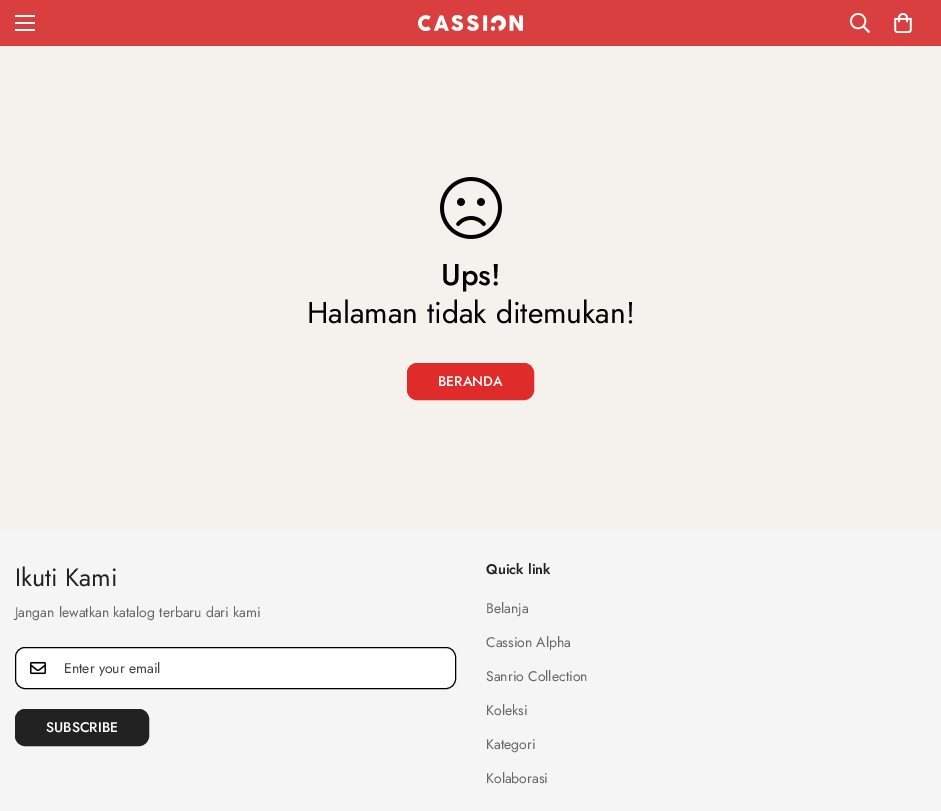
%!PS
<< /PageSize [941 811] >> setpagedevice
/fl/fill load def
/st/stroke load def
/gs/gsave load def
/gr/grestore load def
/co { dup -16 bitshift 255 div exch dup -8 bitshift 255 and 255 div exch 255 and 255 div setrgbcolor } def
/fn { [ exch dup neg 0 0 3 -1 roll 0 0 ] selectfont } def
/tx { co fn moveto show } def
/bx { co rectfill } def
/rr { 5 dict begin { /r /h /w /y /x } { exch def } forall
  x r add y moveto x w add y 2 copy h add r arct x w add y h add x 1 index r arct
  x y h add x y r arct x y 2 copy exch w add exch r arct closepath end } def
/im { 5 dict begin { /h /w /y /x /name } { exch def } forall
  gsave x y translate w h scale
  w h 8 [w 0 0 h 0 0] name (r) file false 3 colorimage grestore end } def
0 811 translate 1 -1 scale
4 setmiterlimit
0 0 941 811 16#F5F1ED bx
0 0 941 46 16#DA3F3F bx
15 22 20 2 16#FFFFFF bx
15 15 20 2 16#FFFFFF bx
15 29 20 2 16#FFFFFF bx
(media/1.raw) 418 15 105 16 im
(media/2.raw) 850 13 20 20 im
(media/3.raw) 894 13 18 20 im
(media/4.raw) 440 177 62 62 im
16#E02B2B co
407.5 363.5 126 36 9.5 rr gs fl gr
st
0 530 941 281 16#F5F5F5 bx
16#FFFFFF co
15.5 647.5 440 41 9.5 rr gs fl gr
16#000000 co
st
(media/5.raw) 30 661 16 14 im
16#222222 co
15.5 709.5 133 36 9.5 rr gs fl gr
st
(Ups!) 441 285 /Jost-Medium 30 16#000000 tx
(Halaman tidak ditemukan!) 307 323 /Jost-Regular 30 16#000000 tx
(BERANDA) 438 386 /Jost-Medium 14 16#FFFFFF tx
(Ikuti Kami) 15 586 /Jost-Regular 25 16#222222 tx
(Jangan lewatkan katalog terbaru dari kami) 15 617 /Jost-Regular 14 16#666666 tx
(Enter your email) 64 673 /Jost-Regular 14 16#404040 tx
(SUBSCRIBE) 46 732 /Jost-Medium 14 16#FFFFFF tx
(Quick link) 486 574 /Jost-SemiBold 14 16#222222 tx
(Belanja) 486 613 /Jost-Regular 14 16#666666 tx
(Cassion Alpha) 486 647 /Jost-Regular 14 16#666666 tx
(Sanrio Collection) 486 681 /Jost-Regular 14 16#666666 tx
(Koleksi) 486 715 /Jost-Regular 14 16#666666 tx
(Kategori) 486 749 /Jost-Regular 14 16#666666 tx
(Kolaborasi) 486 783 /Jost-Regular 14 16#666666 tx
showpage
